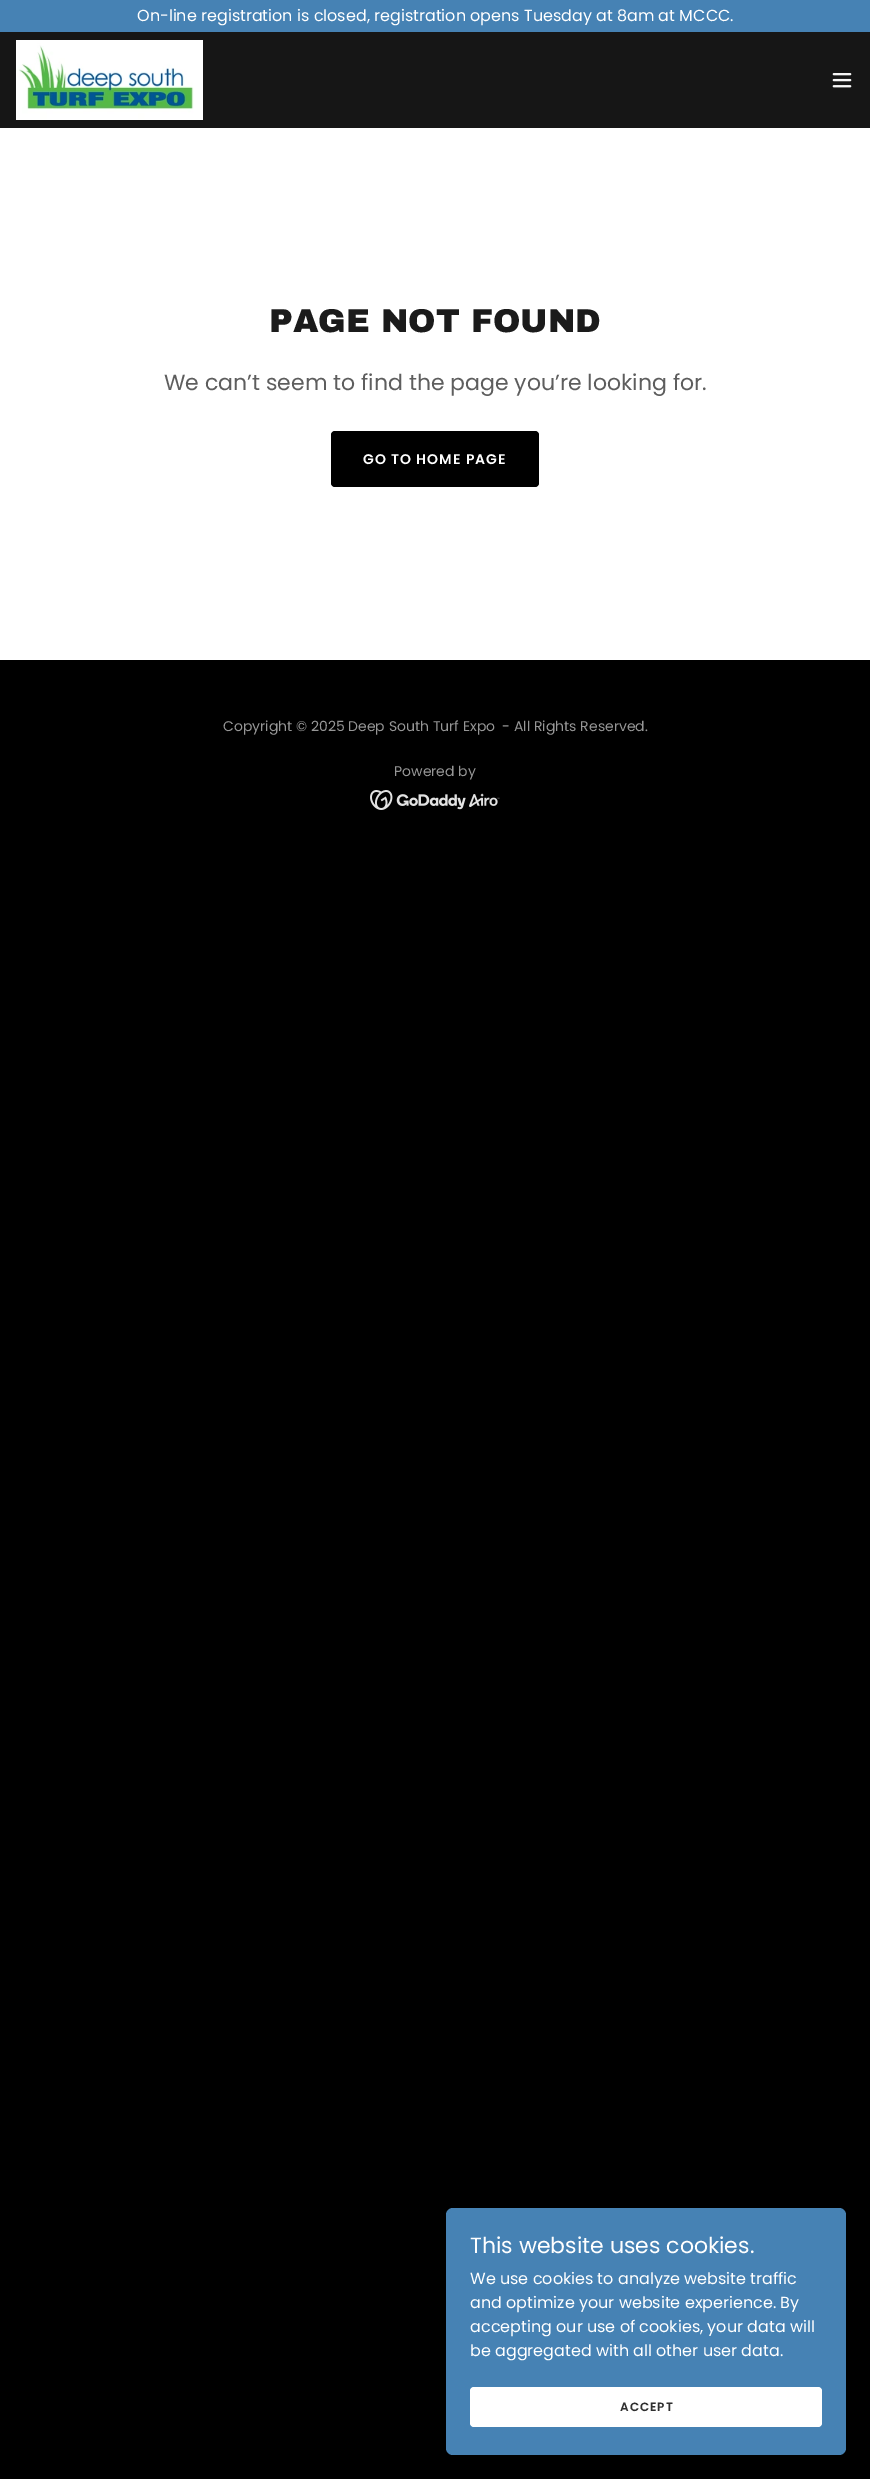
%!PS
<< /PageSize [870 2479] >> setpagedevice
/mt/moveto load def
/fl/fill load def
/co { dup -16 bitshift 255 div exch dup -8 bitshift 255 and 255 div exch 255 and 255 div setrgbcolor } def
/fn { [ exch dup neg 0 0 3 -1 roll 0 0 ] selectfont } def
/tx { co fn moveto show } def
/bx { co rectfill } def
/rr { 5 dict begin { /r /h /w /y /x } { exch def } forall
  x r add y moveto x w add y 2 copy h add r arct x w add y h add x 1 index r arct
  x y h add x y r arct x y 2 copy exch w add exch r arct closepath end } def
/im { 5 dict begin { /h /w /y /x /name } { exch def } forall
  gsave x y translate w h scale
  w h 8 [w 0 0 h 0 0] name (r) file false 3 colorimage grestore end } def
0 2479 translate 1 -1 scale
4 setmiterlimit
0 0 870 2479 16#000000 bx
0 32 870 96 16#161616 bx
0 0 870 32 16#4682B4 bx
(media/1.raw) 16 40 187 80 im
(media/2.raw) 832 73 20 15 im
0 128 870 532 16#FFFFFF bx
16#000000 co
331 431 208 56 4 rr fl
(media/3.raw) 370 790 130 20 im
16#4682B4 co
446 2208 400 247 7 rr fl
16#FFFFFF co
470 2387 352 40 4 rr fl
(On-line registration is closed, registration opens Tuesday at 8am at MCCC.) 137 21 /Poppins-Regular 16 16#FFFFFF tx
(PAGE NOT FOUND) 269 332 /ArchivoBlack-Black 33 16#1B1B1B tx
(We can’t seem to find the page you’re looking for.) 164 390 /Poppins-Regular 22 16#5E5E5E tx
/Poppins-SemiBold 14 fn
16#FFFFFF co
363 464 mt 1 0 (GO TO HOME PAGE) ashow
(Copyright © 2025 Deep South Turf Expo  - All Rights Reserved.) 223 731 /Poppins-Regular 14 16#969696 tx
(Powered by) 394 776 /Poppins-Regular 14 16#969696 tx
(This website uses cookies.) 470 2253 /Poppins-Regular 22 16#FFFFFF tx
(We use cookies to analyze website traffic) 470 2284 /Poppins-Regular 16 16#FFFFFF tx
(and optimize your website experience. By) 470 2308 /Poppins-Regular 16 16#FFFFFF tx
(accepting our use of cookies, your data will) 470 2332 /Poppins-Regular 16 16#FFFFFF tx
(be aggregated with all other user data.) 470 2356 /Poppins-Regular 16 16#FFFFFF tx
/Poppins-SemiBold 12 fn
16#303030 co
620 2411 mt 1 0 (ACCEPT) ashow
showpage
